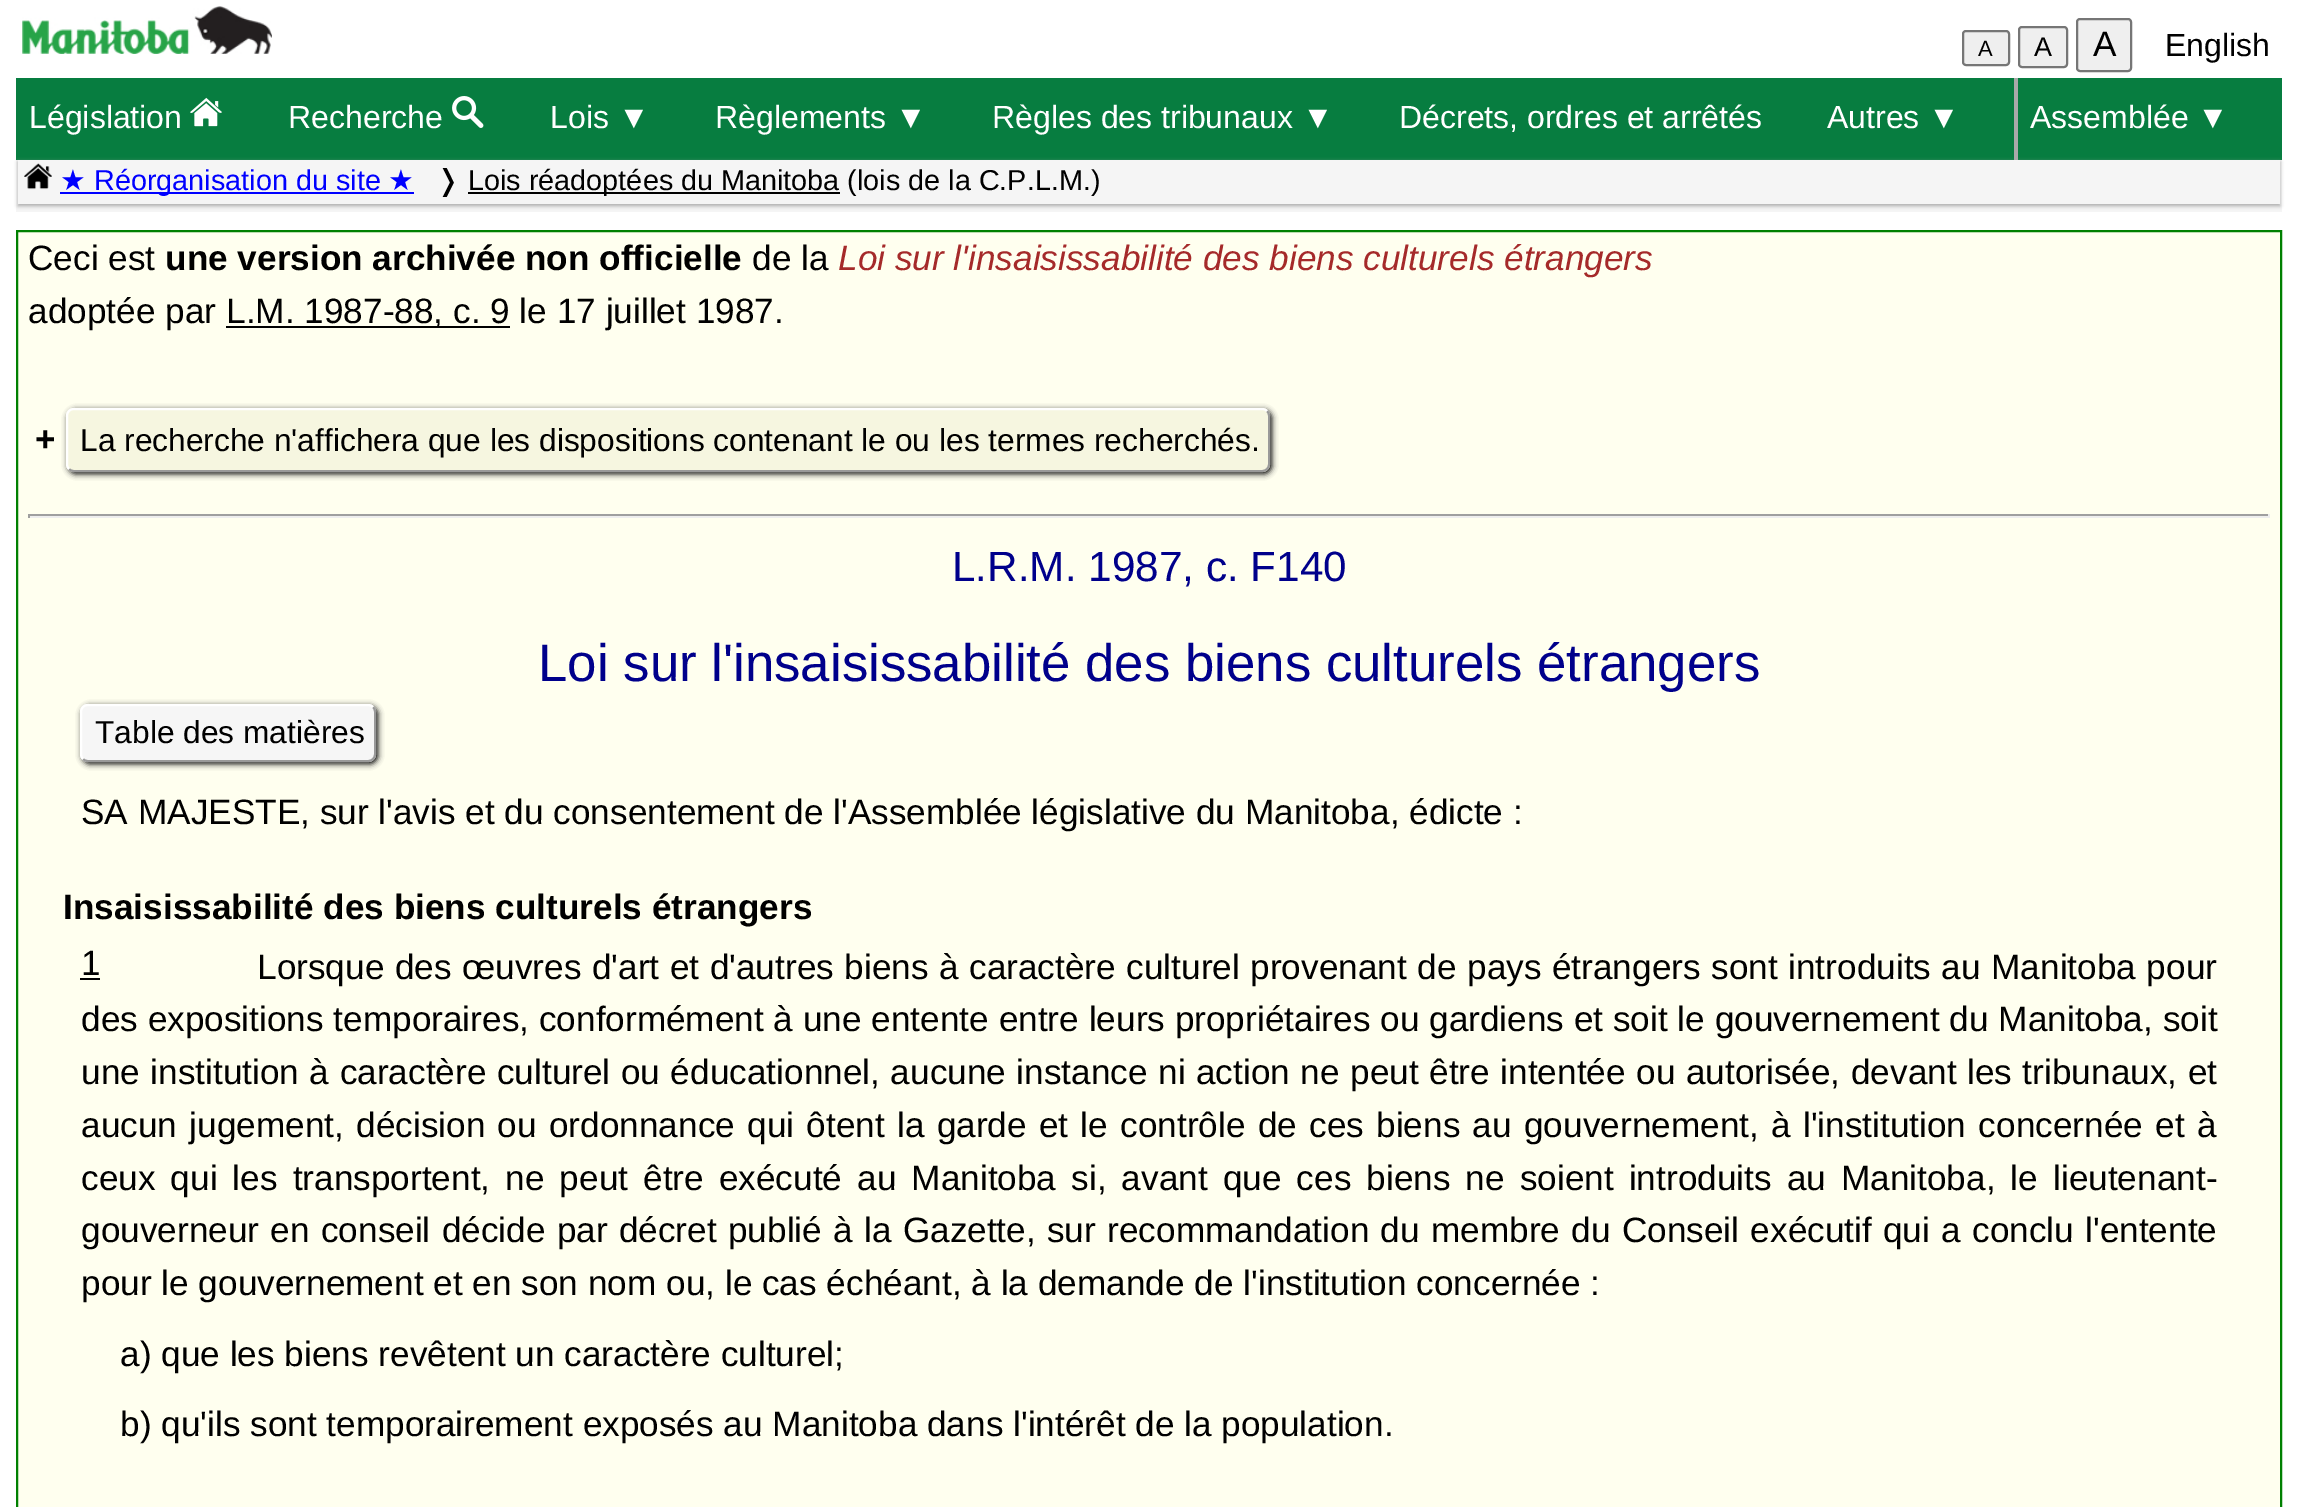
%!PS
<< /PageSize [2298 1507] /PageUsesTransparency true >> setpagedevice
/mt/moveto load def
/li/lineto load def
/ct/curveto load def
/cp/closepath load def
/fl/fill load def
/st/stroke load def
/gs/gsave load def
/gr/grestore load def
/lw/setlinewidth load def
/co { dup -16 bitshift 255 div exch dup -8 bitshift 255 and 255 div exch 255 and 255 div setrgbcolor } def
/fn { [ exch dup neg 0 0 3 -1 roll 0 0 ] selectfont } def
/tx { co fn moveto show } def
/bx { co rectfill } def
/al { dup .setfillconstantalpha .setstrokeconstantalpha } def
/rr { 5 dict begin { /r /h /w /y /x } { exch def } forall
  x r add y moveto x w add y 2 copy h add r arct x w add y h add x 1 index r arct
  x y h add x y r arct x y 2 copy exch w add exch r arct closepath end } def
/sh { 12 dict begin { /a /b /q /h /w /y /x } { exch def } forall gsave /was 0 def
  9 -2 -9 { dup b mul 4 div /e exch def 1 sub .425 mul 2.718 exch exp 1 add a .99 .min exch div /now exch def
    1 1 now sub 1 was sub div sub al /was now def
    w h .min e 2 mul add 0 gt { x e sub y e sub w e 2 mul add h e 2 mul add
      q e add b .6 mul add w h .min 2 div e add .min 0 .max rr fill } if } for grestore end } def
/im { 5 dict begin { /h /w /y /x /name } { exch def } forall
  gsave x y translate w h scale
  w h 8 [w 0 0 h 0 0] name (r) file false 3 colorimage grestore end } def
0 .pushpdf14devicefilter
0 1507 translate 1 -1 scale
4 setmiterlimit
0 0 2298 1507 16#FFFFFF bx
(media/1.raw) 22 6 250 48 im
16#EFEFEF co
1963 31 46 34 3 rr gs fl gr
16#767676 co
2 lw
st
16#EFEFEF co
2019 27 48 40 3 rr gs fl gr
16#767676 co
st
16#EFEFEF co
2077 19 54 52 3 rr gs fl gr
16#767676 co
st
16 160 2266 52 16#F5F5F5 bx
16 78 2266 82 16#077D40 bx
(media/2.raw) 190 97 32 30 im
(media/3.raw) 452 96 32 32 im
2014 78 4 82 16#A9A9A9 bx
gs
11 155 mt 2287 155 li 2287 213 li 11 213 li cp 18 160 mt 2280 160 li 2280 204 li 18 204 li cp eoclip newpath
18 162 2262 44 0 2 1 sh
gr
(media/4.raw) 24 163 28 27 im
60 192 354 2 16#0000FF bx
468 192 372 2 16#000000 bx
16#FFFFEF co
17 231 mt 2281 231 li 2281 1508 li 17 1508 li cp gs fl gr
16#008000 co
st
226 326 284 2 16#000000 bx
68 410 1204 64 8 3 1 sh
16#F6F6E0 co
66 408 1204 64 8 rr fl
16#999999 co
1267 411 mt 1268.5 412.5 1269 414 1269 416 ct 1269 464 li 1269 466 1268.5 467.5 1267 469 ct 1265.5 470.5 1264 471 1262 471 ct 74 471 li 72 471 70.5 470.5 69 469 ct st
16#FFFFFF co
69 469 mt 67.5 467.5 67 466 67 464 ct 67 416 li 67 414 67.5 412.5 69 411 ct 70.5 409.5 72 409 74 409 ct 1262 409 li 1264 409 1265.5 409.5 1267 411 ct st
28 514 2242 2 16#9F9F9F bx
2268 514 2 4 16#EEEEEE bx
28 516 2242 2 16#EEEEEE bx
28 514 2 4 16#9F9F9F bx
16#000000 co
82 706 296 58 8 3 1 sh
16#F6F6F6 co
80 704 296 58 8 rr fl
16#999999 co
373 707 mt 374.5 708.5 375 710 375 712 ct 375 754 li 375 756 374.5 757.5 373 759 ct 371.5 760.5 370 761 368 761 ct 88 761 li 86 761 84.5 760.5 83 759 ct st
16#FFFFFF co
83 759 mt 81.5 757.5 81 756 81 754 ct 81 712 li 81 710 81.5 708.5 83 707 ct 84.5 705.5 86 705 88 705 ct 368 705 li 370 705 371.5 705.5 373 707 ct st
80 978 20 2 16#000000 bx
(A) 1978 56 /LiberationSans-Regular 22 16#000000 tx
(A) 2034 56 /LiberationSans-Regular 27 16#000000 tx
(A) 2093 56 /LiberationSans-Regular 35.2 16#000000 tx
(English) 2165 56 /LiberationSans-Regular 32 16#000000 tx
(Législation) 29 128 /LiberationSans-Regular 32 16#FFFFFF tx
(Recherche) 288 128 /LiberationSans-Regular 32 16#FFFFFF tx
(Lois ▼) 550 128 /LiberationSans-Regular 32 16#FFFFFF tx
(Règlements ▼) 715 128 /LiberationSans-Regular 32 16#FFFFFF tx
(Règles des tribunaux ▼) 992 128 /LiberationSans-Regular 32 16#FFFFFF tx
(Décrets, ordres et arrêtés) 1399 128 /LiberationSans-Regular 32 16#FFFFFF tx
(Autres ▼) 1827 128 /LiberationSans-Regular 32 16#FFFFFF tx
(Assemblée ▼) 2030 128 /LiberationSans-Regular 32 16#FFFFFF tx
(★) 60 190 /DejaVuSans-Regular 28.8 16#0000FF tx
(Réorganisation du site) 94 190 /LiberationSans-Regular 28.8 16#0000FF tx
(★) 388 190 /DejaVuSans-Regular 28.8 16#0000FF tx
(❭) 436 190 /DejaVuSans-Regular 28.8 16#000000 tx
(Lois réadoptées du Manitoba \(lois de la C.P.L.M.\)) 468 190 /LiberationSans-Regular 28.8 16#000000 tx
(Ceci est) 28 270 /LiberationSans-Regular 35.2 16#000000 tx
(une version archivée non officielle) 165 270 /LiberationSans-Bold 35.2 16#000000 tx
(de la) 752 270 /LiberationSans-Regular 35.2 16#000000 tx
(Loi sur l'insaisissabilité des biens culturels étrangers) 838 270 /LiberationSans-Italic 35.2 16#A52A2A tx
(adoptée par) 28 323 /LiberationSans-Regular 35.2 16#000000 tx
(L.M. 1987-88, c. 9 le 17 juillet 1987.) 226 323 /LiberationSans-Regular 35.2 16#000000 tx
(+) 35 451 /LiberationSans-Bold 35.2 16#000000 tx
(La recherche n'affichera que les dispositions contenant le ou les termes recherchés.) 80 451 /LiberationSans-Regular 31.7 16#000000 tx
(L.R.M. 1987, c. F140) 952 581 /LiberationSans-Regular 42.25 16#00008B tx
(Loi sur l'insaisissabilité des biens culturels étrangers) 538 681 /LiberationSans-Regular 52.8 16#00008B tx
(Table des matières) 95 743 /LiberationSans-Regular 31.7 16#000000 tx
(SA MAJESTE, sur l'avis et du consentement de l'Assemblée législative du Manitoba, édicte :) 81 824 /LiberationSans-Regular 35.2 16#000000 tx
(Insaisissabilité des biens culturels étrangers) 63 919 /LiberationSans-Bold 35.2 16#000000 tx
(1) 81 975 /LiberationSans-Regular 35.2 16#000000 tx
257 979 mt .75 0 32 (Lorsque des œuvres d'art et d'autres biens à caractère culturel provenant de pays étrangers sont introduits au Manitoba pour) widthshow
(des expositions temporaires, conformément à une entente entre leurs propriétaires ou gardiens et soit le gouvernement du Manitoba, soit) 81 1031 /LiberationSans-Regular 35.2 16#000000 tx
81 1084 mt .75 0 32 (une institution à caractère culturel ou éducationnel, aucune instance ni action ne peut être intentée ou autorisée, devant les tribunaux, et) widthshow
81 1137 mt 2.5 0 32 (aucun jugement, décision ou ordonnance qui ôtent la garde et le contrôle de ces biens au gouvernement, à l'institution concernée et à) widthshow
81 1190 mt 5.3 0 32 (ceux qui les transportent, ne peut être exécuté au Manitoba si, avant que ces biens ne soient introduits au Manitoba, le lieutenant-) widthshow
81 1242 mt 1.5 0 32 (gouverneur en conseil décide par décret publié à la Gazette, sur recommandation du membre du Conseil exécutif qui a conclu l'entente) widthshow
(pour le gouvernement et en son nom ou, le cas échéant, à la demande de l'institution concernée :) 81 1295 /LiberationSans-Regular 35.2 16#000000 tx
(a\) que les biens revêtent un caractère culturel;) 120 1366 /LiberationSans-Regular 35.2 16#000000 tx
(b\) qu'ils sont temporairement exposés au Manitoba dans l'intérêt de la population.) 120 1436 /LiberationSans-Regular 35.2 16#000000 tx
.poppdf14devicefilter showpage
